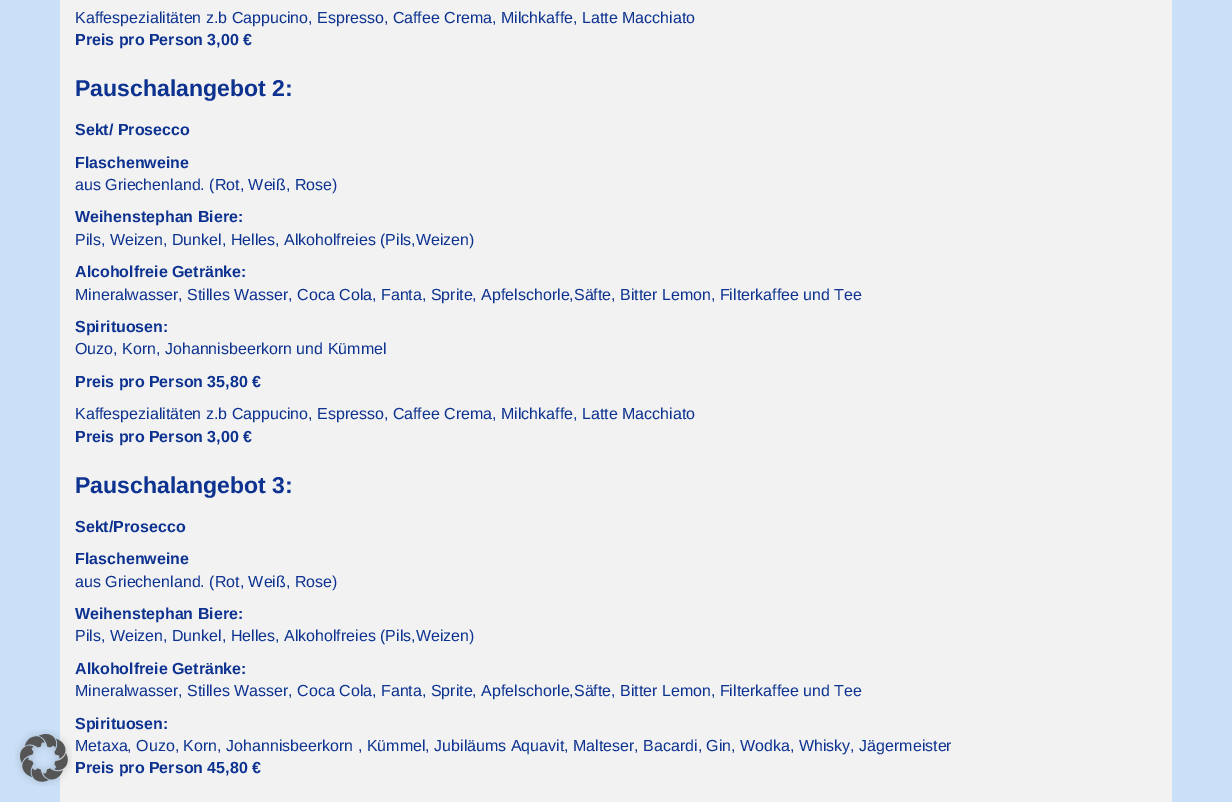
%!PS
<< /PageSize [1232 802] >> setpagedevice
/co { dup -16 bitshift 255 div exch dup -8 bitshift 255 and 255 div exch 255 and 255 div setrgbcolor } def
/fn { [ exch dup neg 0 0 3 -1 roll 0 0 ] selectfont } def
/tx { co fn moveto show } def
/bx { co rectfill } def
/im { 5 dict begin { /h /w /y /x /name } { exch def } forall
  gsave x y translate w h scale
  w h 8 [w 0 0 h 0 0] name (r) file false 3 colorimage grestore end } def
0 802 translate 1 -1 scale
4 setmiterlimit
0 0 1232 802 16#CAE0F8 bx
60 0 1112 802 16#F2F2F2 bx
(media/1.raw) 15 729 57 57 im
(Kaffespezialitäten z.b Cappucino, Espresso, Caffee Crema, Milchkaffe, Latte Macchiato) 75 23 /LiberationSans-Regular 16 16#0D3290 tx
(Preis pro Person 3,00 €) 75 45 /LiberationSans-Bold 16 16#0D3290 tx
(Pauschalangebot 2:) 75 96 /LiberationSans-Bold 23 16#0D3290 tx
(Sekt/ Prosecco) 75 135 /LiberationSans-Bold 16 16#0D3290 tx
(Flaschenweine) 75 168 /LiberationSans-Bold 16 16#0D3290 tx
(aus Griechenland. \(Rot, Weiß, Rose\)) 75 190 /LiberationSans-Regular 16 16#0D3290 tx
(Weihenstephan Biere:) 75 222 /LiberationSans-Bold 16 16#0D3290 tx
(Pils, Weizen, Dunkel, Helles, Alkoholfreies \(Pils,Weizen\)) 75 245 /LiberationSans-Regular 16 16#0D3290 tx
(Alcoholfreie Getränke:) 75 277 /LiberationSans-Bold 16 16#0D3290 tx
(Mineralwasser, Stilles Wasser, Coca Cola, Fanta, Sprite, Apfelschorle,Säfte, Bitter Lemon, Filterkaffee und Tee) 75 300 /LiberationSans-Regular 16 16#0D3290 tx
(Spirituosen:) 75 332 /LiberationSans-Bold 16 16#0D3290 tx
(Ouzo, Korn, Johannisbeerkorn und Kümmel) 75 354 /LiberationSans-Regular 16 16#0D3290 tx
(Preis pro Person 35,80 €) 75 387 /LiberationSans-Bold 16 16#0D3290 tx
(Kaffespezialitäten z.b Cappucino, Espresso, Caffee Crema, Milchkaffe, Latte Macchiato) 75 419 /LiberationSans-Regular 16 16#0D3290 tx
(Preis pro Person 3,00 €) 75 442 /LiberationSans-Bold 16 16#0D3290 tx
(Pauschalangebot 3:) 75 493 /LiberationSans-Bold 23 16#0D3290 tx
(Sekt/Prosecco) 75 532 /LiberationSans-Bold 16 16#0D3290 tx
(Flaschenweine) 75 564 /LiberationSans-Bold 16 16#0D3290 tx
(aus Griechenland. \(Rot, Weiß, Rose\)) 75 587 /LiberationSans-Regular 16 16#0D3290 tx
(Weihenstephan Biere:) 75 619 /LiberationSans-Bold 16 16#0D3290 tx
(Pils, Weizen, Dunkel, Helles, Alkoholfreies \(Pils,Weizen\)) 75 641 /LiberationSans-Regular 16 16#0D3290 tx
(Alkoholfreie Getränke:) 75 674 /LiberationSans-Bold 16 16#0D3290 tx
(Mineralwasser, Stilles Wasser, Coca Cola, Fanta, Sprite, Apfelschorle,Säfte, Bitter Lemon, Filterkaffee und Tee) 75 696 /LiberationSans-Regular 16 16#0D3290 tx
(Spirituosen:) 75 729 /LiberationSans-Bold 16 16#0D3290 tx
(Metaxa, Ouzo, Korn, Johannisbeerkorn , Kümmel, Jubiläums Aquavit, Malteser, Bacardi, Gin, Wodka, Whisky, Jägermeister) 75 751 /LiberationSans-Regular 16 16#0D3290 tx
(Preis pro Person 45,80 €) 75 773 /LiberationSans-Bold 16 16#0D3290 tx
showpage
